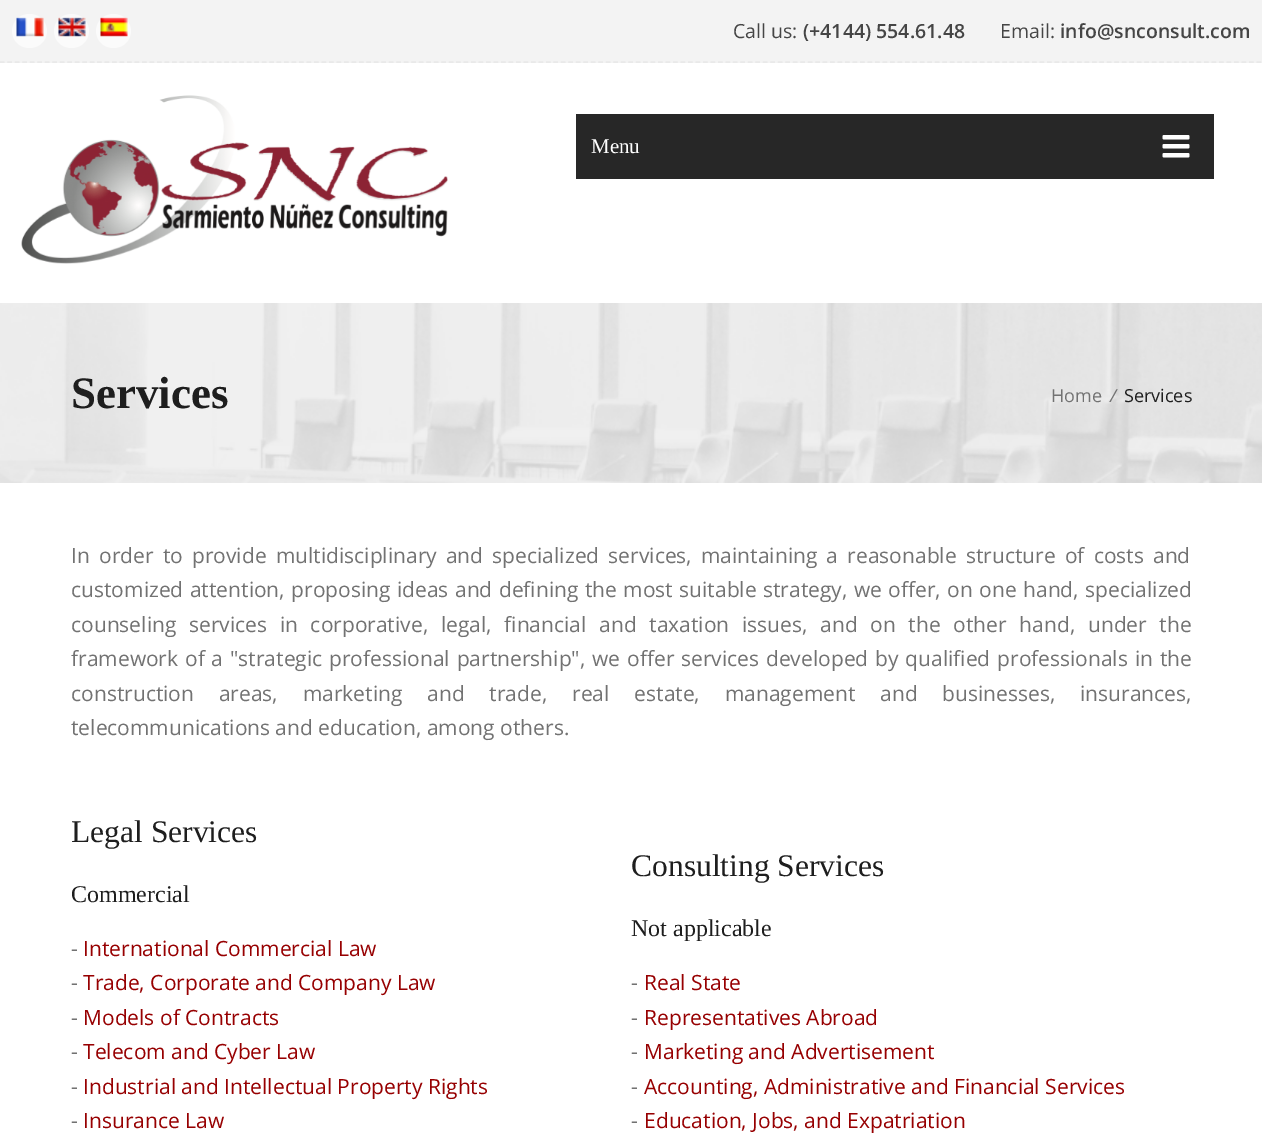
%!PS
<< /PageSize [1262 1142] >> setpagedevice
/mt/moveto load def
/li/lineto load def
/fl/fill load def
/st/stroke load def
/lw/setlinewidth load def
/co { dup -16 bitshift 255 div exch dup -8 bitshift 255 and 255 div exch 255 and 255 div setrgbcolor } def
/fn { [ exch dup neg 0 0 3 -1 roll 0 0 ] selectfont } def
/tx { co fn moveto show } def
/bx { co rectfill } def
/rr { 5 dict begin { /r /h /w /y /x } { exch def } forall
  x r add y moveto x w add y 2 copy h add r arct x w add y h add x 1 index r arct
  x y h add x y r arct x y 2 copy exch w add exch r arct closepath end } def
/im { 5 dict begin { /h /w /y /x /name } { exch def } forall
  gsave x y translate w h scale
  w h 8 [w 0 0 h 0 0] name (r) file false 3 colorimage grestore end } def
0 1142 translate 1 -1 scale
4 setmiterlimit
0 0 1262 1142 16#FFFFFF bx
0 0 1262 63 16#F3F3F3 bx
16#E9E9E9 co
1.5 lw
[4.5 2.98] 0 setdash
0 62 mt 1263 62 li st
16#FBFBFB co
12 14 35 34 17 rr fl
(media/1.raw) 16 17 28 20 im
54 14 35 34 17 rr fl
(media/2.raw) 58 17 28 20 im
96 14 35 34 17 rr fl
(media/3.raw) 100 17 28 20 im
(media/4.raw) 21 95 427 169 im
576 114 638 65 16#272727 bx
(media/5.raw) 1162 135 28 23 im
0 303 1262 180 16#EEEEEE bx
(media/6.raw) 0 303 1262 180 im
(Call us:) 733 38 /OpenSans-Regular 19.5 16#454545 tx
(\(+4144\) 554.61.48) 803 38 /OpenSans-SemiBold 19.5 16#454545 tx
(Email:) 1000 38 /OpenSans-Regular 19.5 16#454545 tx
(info@snconsult.com) 1060 38 /OpenSans-SemiBold 19.5 16#454545 tx
(Menu) 591 153 /LiberationSerif-Regular 21 16#FFFFFF tx
(Services) 71 408 /LiberationSerif-Bold 45 16#1E1E1E tx
(Home) 1051 402 /OpenSans-Regular 18 16#727272 tx
(/) 1110 402 /OpenSans-Italic 18 16#727272 tx
(Services) 1124 402 /OpenSans-Regular 18 16#1E1E1E tx
/OpenSans-Regular 21 fn
16#727272 co
71 563 mt 3.75 0 32 (In order to provide multidisciplinary and specialized services, maintaining a reasonable structure of costs and) widthshow
71 597 mt 1 0 32 (customized attention, proposing ideas and defining the most suitable strategy, we offer, on one hand, specialized) widthshow
71 632 mt 7.25 0 32 (counseling services in corporative, legal, financial and taxation issues, and on the other hand, under the) widthshow
71 666 mt 1.4 0 32 (framework of a "strategic professional partnership", we offer services developed by qualified professionals in the) widthshow
71 701 mt 19.4 0 32 (construction areas, marketing and trade, real estate, management and businesses, insurances,) widthshow
(telecommunications and education, among others.) 71 735 /OpenSans-Regular 21 16#727272 tx
(Legal Services) 71 842 /LiberationSerif-Regular 31.5 16#1E1E1E tx
(Commercial) 71 902 /LiberationSerif-Regular 24 16#1E1E1E tx
(-) 71 956 /OpenSans-Regular 21 16#727272 tx
(International Commercial Law) 83 956 /OpenSans-Regular 21 16#970001 tx
(-) 71 990 /OpenSans-Regular 21 16#727272 tx
(Trade, Corporate and Company Law) 83 990 /OpenSans-Regular 21 16#970001 tx
(-) 71 1025 /OpenSans-Regular 21 16#727272 tx
(Models of Contracts) 83 1025 /OpenSans-Regular 21 16#970001 tx
(-) 71 1059 /OpenSans-Regular 21 16#727272 tx
(Telecom and Cyber Law) 83 1059 /OpenSans-Regular 21 16#970001 tx
(-) 71 1094 /OpenSans-Regular 21 16#727272 tx
(Industrial and Intellectual Property Rights) 83 1094 /OpenSans-Regular 21 16#970001 tx
(-) 71 1128 /OpenSans-Regular 21 16#727272 tx
(Insurance Law) 83 1128 /OpenSans-Regular 21 16#970001 tx
(Consulting Services) 631 876 /LiberationSerif-Regular 31.5 16#1E1E1E tx
(Not applicable) 631 936 /LiberationSerif-Regular 24 16#1E1E1E tx
(-) 631 990 /OpenSans-Regular 21 16#727272 tx
(Real State) 644 990 /OpenSans-Regular 21 16#970001 tx
(-) 631 1025 /OpenSans-Regular 21 16#727272 tx
(Representatives Abroad) 644 1025 /OpenSans-Regular 21 16#970001 tx
(-) 631 1059 /OpenSans-Regular 21 16#727272 tx
(Marketing and Advertisement) 644 1059 /OpenSans-Regular 21 16#970001 tx
(-) 631 1094 /OpenSans-Regular 21 16#727272 tx
(Accounting, Administrative and Financial Services) 644 1094 /OpenSans-Regular 21 16#970001 tx
(-) 631 1128 /OpenSans-Regular 21 16#727272 tx
(Education, Jobs, and Expatriation) 644 1128 /OpenSans-Regular 21 16#970001 tx
showpage
